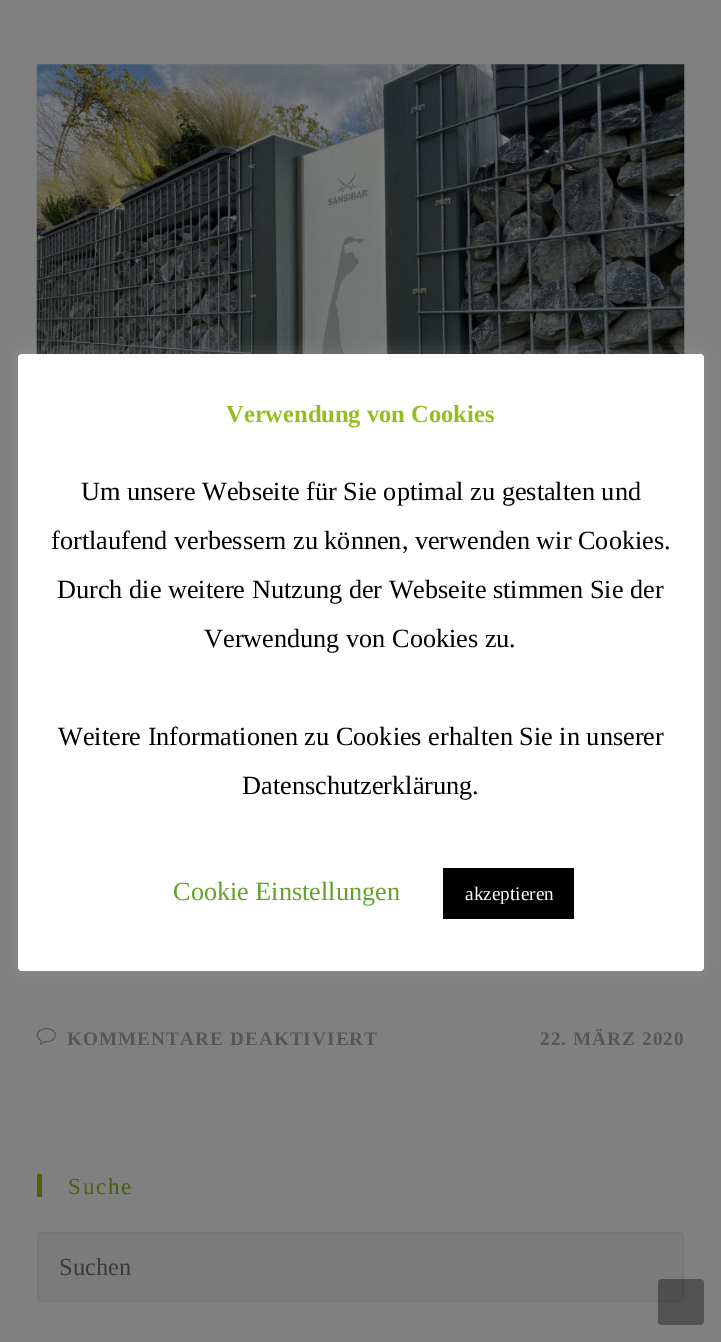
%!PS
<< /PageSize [721 1342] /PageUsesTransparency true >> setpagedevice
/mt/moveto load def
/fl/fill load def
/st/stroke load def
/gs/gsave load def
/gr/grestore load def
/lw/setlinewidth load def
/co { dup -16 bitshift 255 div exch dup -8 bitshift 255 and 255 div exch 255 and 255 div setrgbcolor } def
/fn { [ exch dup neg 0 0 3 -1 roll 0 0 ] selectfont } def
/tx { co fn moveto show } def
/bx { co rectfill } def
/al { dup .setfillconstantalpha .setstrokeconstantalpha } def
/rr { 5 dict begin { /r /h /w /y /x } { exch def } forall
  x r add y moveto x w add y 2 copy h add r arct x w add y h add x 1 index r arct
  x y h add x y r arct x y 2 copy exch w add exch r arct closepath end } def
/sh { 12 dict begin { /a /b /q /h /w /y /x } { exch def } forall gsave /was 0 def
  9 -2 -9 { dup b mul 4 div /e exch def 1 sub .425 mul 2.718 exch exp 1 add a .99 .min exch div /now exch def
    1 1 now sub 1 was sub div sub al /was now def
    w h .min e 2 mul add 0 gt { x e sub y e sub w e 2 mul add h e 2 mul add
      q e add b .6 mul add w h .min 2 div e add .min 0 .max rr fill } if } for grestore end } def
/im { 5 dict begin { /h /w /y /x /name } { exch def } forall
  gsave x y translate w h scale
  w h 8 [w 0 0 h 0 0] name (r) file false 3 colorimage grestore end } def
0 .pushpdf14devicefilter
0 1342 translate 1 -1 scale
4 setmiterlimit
0 0 721 1342 16#808080 bx
(media/1.raw) 36 64 649 290 im
16#ACABAB co
18 352 686 618 4 9 .3 sh
16#FFFFFF co
18 354 686 617 4 rr fl
443 868 131 51 16#000000 bx
(media/2.raw) 36 1027 20 18 im
37 1174 5 23 16#4A6010 bx
16#7B7B7B co
38 1233 645 68 4 rr gs fl gr
16#777777 co
2 lw
st
0.36 al
16#000000 co
658 1279 46 46 4 rr fl
1 al
(Verwendung von Cookies) 226 422 /LiberationSerif-Bold 24.5 16#93C01F tx
(Um unsere Webseite für Sie optimal zu gestalten und) 81 500 /LiberationSerif-Regular 26.25 16#000000 tx
(fortlaufend verbessern zu können, verwenden wir Cookies.) 51 549 /LiberationSerif-Regular 26.25 16#000000 tx
(Durch die weitere Nutzung der Webseite stimmen Sie der) 57 598 /LiberationSerif-Regular 26.25 16#000000 tx
(Verwendung von Cookies zu.) 204 647 /LiberationSerif-Regular 26.25 16#000000 tx
(Weitere Informationen zu Cookies erhalten Sie in unserer) 58 745 /LiberationSerif-Regular 26.25 16#000000 tx
(Datenschutzerklärung.) 242 794 /LiberationSerif-Regular 26.25 16#000000 tx
(Cookie Einstellungen) 173 900 /LiberationSerif-Regular 26.25 16#62A329 tx
(akzeptieren) 465 900 /LiberationSerif-Regular 19.25 16#FFFFFF tx
/LiberationSerif-Bold 19.25 fn
16#565656 co
67 1045 mt 1.05 0 (KOMMENTARE DEAKTIVIERT) ashow
540 1045 mt 1.05 0 (22. MÄRZ 2020) ashow
/LiberationSerif-Regular 23 fn
16#4A6010 co
68 1194 mt 1.75 0 (Suche) ashow
(Suchen) 59 1275 /LiberationSerif-Regular 24.5 16#3B3B3B tx
.poppdf14devicefilter showpage
